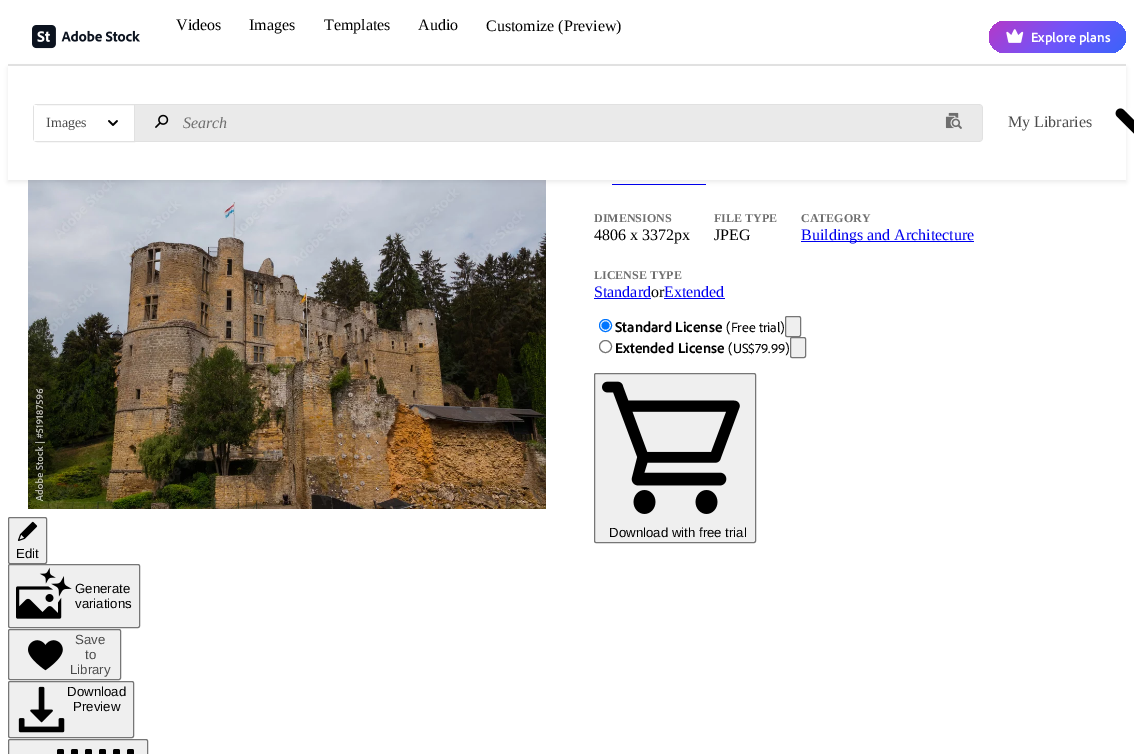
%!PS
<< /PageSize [1134 754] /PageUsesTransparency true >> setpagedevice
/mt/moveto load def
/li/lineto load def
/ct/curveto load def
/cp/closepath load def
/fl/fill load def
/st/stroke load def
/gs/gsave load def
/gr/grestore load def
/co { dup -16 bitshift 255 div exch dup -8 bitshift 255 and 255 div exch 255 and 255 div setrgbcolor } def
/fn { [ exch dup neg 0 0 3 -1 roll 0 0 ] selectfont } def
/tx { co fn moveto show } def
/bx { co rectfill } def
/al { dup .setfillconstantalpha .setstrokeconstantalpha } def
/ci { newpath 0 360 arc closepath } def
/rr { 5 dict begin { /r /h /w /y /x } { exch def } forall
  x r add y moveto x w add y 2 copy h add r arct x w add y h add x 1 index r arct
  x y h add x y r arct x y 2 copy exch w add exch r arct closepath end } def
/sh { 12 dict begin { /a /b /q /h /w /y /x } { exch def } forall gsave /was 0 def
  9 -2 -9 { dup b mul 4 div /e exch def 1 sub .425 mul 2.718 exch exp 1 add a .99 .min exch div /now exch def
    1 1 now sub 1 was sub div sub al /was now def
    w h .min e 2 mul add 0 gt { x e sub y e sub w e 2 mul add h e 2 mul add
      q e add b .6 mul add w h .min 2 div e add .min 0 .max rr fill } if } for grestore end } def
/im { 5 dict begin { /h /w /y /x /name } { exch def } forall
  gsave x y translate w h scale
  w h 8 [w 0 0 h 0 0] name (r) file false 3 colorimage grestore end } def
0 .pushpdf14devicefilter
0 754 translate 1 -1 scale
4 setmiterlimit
0 0 1134 754 16#FFFFFF bx
612 184 94 1 16#0000EE bx
(media/8.raw) 28 180 518 329 im
16#343434 co
8 68 1118 114 0 2 .1 sh
8 64 1118 2 16#E1E1E1 bx
(media/1.raw) 32 25 108 24 im
gs 989 21 137 32 16 rr clip newpath
<< /ShadingType 2 /ColorSpace /DeviceRGB /Coords [1015 -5.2 1100 79] /Extend [true true] /Function << /FunctionType 3 /Domain [0 1] /Functions [<< /FunctionType 2 /Domain [0 1] /C0 [.71 .224 .784] /C1 [.443 .333 .98] /N 1 >> << /FunctionType 2 /Domain [0 1] /C0 [.443 .333 .98] /C1 [.231 .388 .984] /N 1 >>] /Bounds [.5] /Encode [0 1 0 1] >> >> shfill gr
(media/2.raw) 1006 29 18 14 im
8 66 1118 114 16#FFFFFF bx
16#E1E1E1 co
37 104.5 mt 134.5 104.5 li 134.5 141.5 li 37 141.5 li 35 141.5 33.5 140 33.5 138 ct 33.5 108 li 33.5 106 35 104.5 37 104.5 ct cp st
34 105 3 36 16#FFFFFF bx
(media/3.raw) 108 120 10 6 im
16#EAEAEA co
135 105 mt 979 105 li 980.5 105 982 106.5 982 108 ct 982 138 li 982 139.5 980.5 141 979 141 ct 135 141 li cp fl
16#E1E1E1 co
135 104 mt 979 104 li 981 104 983 106 983 108 ct 983 138 li 983 140 981 142 979 142 ct 135 142 li cp 135 105 mt 979 105 li 981 105 982 106 982 108 ct 982 138 li 982 140 981 141 979 141 ct 135 141 li cp eofill
(media/4.raw) 155 114 14 14 im
(media/5.raw) 945 112 17 17 im
(media/6.raw) 1115 108 19 26 im
801 241 173 1 16#0000EE bx
594 298 57 1 16#0000EE bx
664 298 61 1 16#0000EE bx
16#0075FF co
605.5 325.5 6 ci st
605.5 325.5 4 ci fl
16#EFEFEF co
785.5 316.5 15 20 1.5 rr gs fl gr
16#767676 co
st
605.5 346.5 6 ci st
16#EFEFEF co
790.5 337.5 15 20 1.5 rr gs fl gr
16#767676 co
st
16#EFEFEF co
594.5 373.5 161 169 1.5 rr gs fl gr
16#767676 co
st
(media/7.raw) 602 381 138 133 im
16#EFEFEF co
8.5 517.5 38 46 1.5 rr gs fl gr
16#767676 co
st
(media/9.raw) 17 521 21 20 im
16#EFEFEF co
8.5 564.5 131 63 1.5 rr gs fl gr
16#767676 co
st
(media/10.raw) 16 567 56 52 im
16#EFEFEF co
8.5 629.5 112 50 1.5 rr gs fl gr
16#767676 co
st
(media/11.raw) 28 640 35 31 im
16#EFEFEF co
8.5 681.5 125 56 1.5 rr gs fl gr
16#767676 co
st
(media/12.raw) 18 686 47 47 im
16#EFEFEF co
8.5 739.5 139 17 1.5 rr gs fl gr
16#767676 co
st
(media/13.raw) 57 749 77 5 im
(Videos) 176 30 /LiberationSerif-Regular 16 16#000000 tx
(Images) 249 30 /LiberationSerif-Regular 16 16#000000 tx
(Templates) 324 30 /LiberationSerif-Regular 16 16#000000 tx
(Audio) 418 30 /LiberationSerif-Regular 16 16#000000 tx
(Customize \(Preview\)) 486 31 /LiberationSerif-Regular 16 16#000000 tx
(Explore plans) 1031 42 /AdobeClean-Bold 14 16#FFFFFF tx
(Images) 46 127 /LiberationSerif-Regular 14 16#4B4B4B tx
(Search) 183 128 /LiberationSerif-Italic 16 16#6E6E6E tx
(My Libraries) 1008 127 /LiberationSerif-Regular 16 16#4B4B4B tx
(DIMENSIONS) 594 222 /LiberationSerif-Bold 12 16#6E6E6E tx
(4806 x 3372px) 594 240 /LiberationSerif-Regular 16 16#000000 tx
(FILE TYPE) 714 222 /LiberationSerif-Bold 12 16#6E6E6E tx
(JPEG) 714 240 /LiberationSerif-Regular 16 16#000000 tx
(CATEGORY) 801 222 /LiberationSerif-Bold 12 16#6E6E6E tx
(Buildings and Architecture) 801 240 /LiberationSerif-Regular 16 16#0000EE tx
(LICENSE TYPE) 594 279 /LiberationSerif-Bold 12 16#6E6E6E tx
(Standard) 594 297 /LiberationSerif-Regular 16 16#0000EE tx
(or) 651 297 /LiberationSerif-Regular 16 16#000000 tx
(Extended) 664 297 /LiberationSerif-Regular 16 16#0000EE tx
(Standard License) 615 332 /AdobeClean-Bold 15 16#000000 tx
(\(Free trial\)) 726 332 /AdobeClean-Regular 14 16#000000 tx
(Extended License) 615 353 /AdobeClean-Bold 15 16#000000 tx
(\(US$79.99\)) 728 353 /AdobeClean-Regular 14 16#000000 tx
(Download with free trial) 609 537 /LiberationSans-Regular 13.25 16#000000 tx
(Edit) 16 558 /LiberationSans-Regular 13.25 16#000000 tx
(Generate) 75 593 /LiberationSans-Regular 13.25 16#000000 tx
(variations) 75 608 /LiberationSans-Regular 13.25 16#000000 tx
(Save) 75 644 /LiberationSans-Regular 13.25 16#4B4B4B tx
(to) 85 659 /LiberationSans-Regular 13.25 16#4B4B4B tx
(Library) 70 674 /LiberationSans-Regular 13.25 16#4B4B4B tx
(Download) 67 696 /LiberationSans-Regular 13.25 16#000000 tx
(Preview) 73 711 /LiberationSans-Regular 13.25 16#000000 tx
.poppdf14devicefilter showpage
